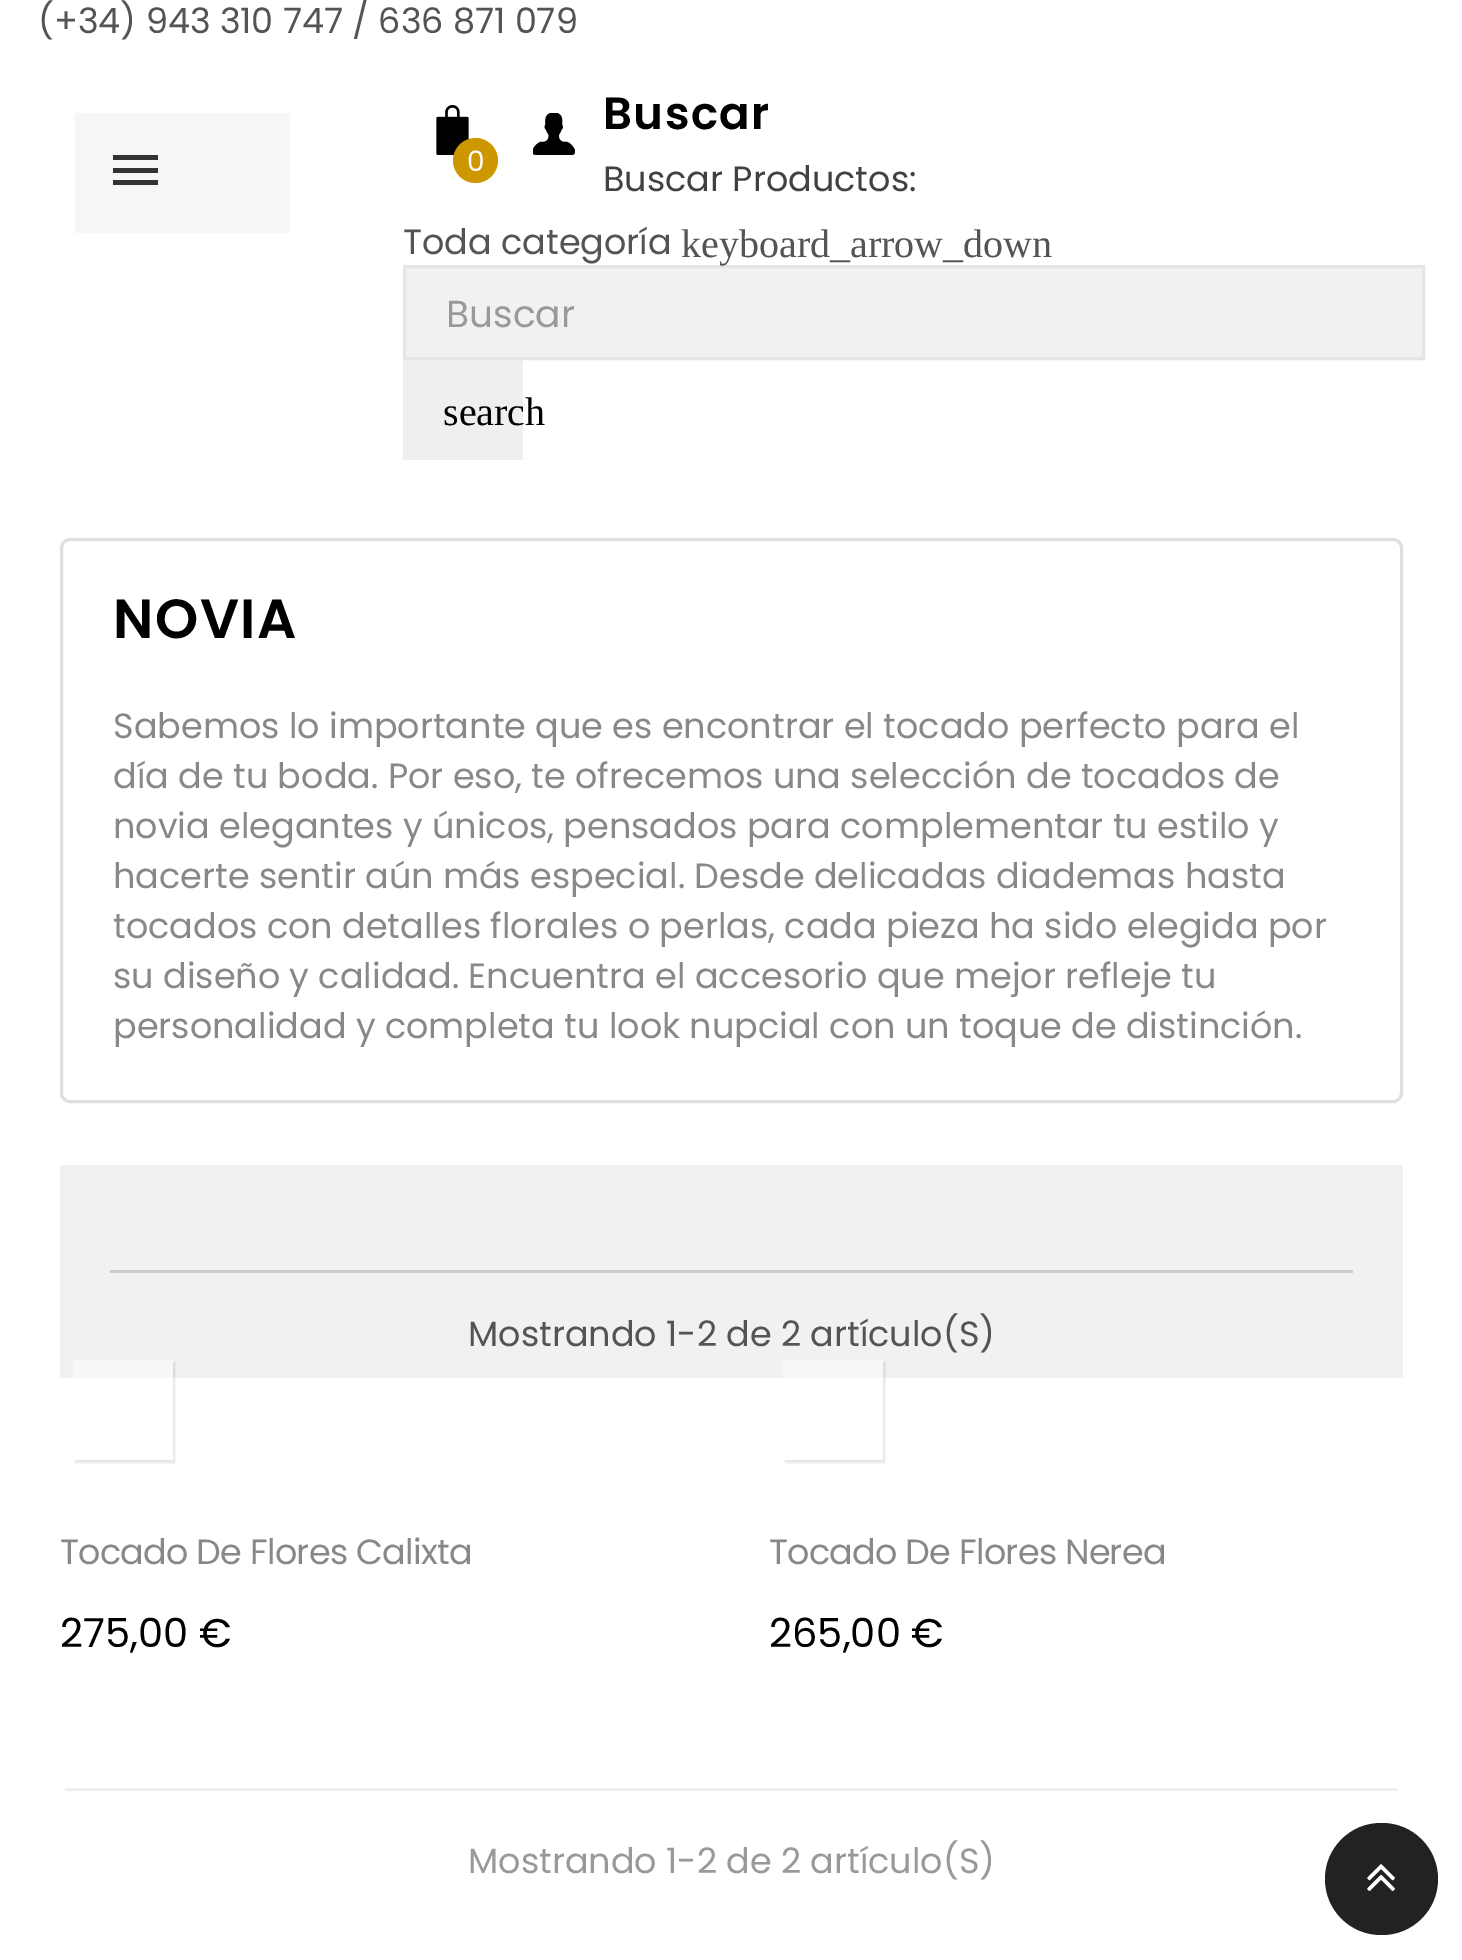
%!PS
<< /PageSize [1462 1960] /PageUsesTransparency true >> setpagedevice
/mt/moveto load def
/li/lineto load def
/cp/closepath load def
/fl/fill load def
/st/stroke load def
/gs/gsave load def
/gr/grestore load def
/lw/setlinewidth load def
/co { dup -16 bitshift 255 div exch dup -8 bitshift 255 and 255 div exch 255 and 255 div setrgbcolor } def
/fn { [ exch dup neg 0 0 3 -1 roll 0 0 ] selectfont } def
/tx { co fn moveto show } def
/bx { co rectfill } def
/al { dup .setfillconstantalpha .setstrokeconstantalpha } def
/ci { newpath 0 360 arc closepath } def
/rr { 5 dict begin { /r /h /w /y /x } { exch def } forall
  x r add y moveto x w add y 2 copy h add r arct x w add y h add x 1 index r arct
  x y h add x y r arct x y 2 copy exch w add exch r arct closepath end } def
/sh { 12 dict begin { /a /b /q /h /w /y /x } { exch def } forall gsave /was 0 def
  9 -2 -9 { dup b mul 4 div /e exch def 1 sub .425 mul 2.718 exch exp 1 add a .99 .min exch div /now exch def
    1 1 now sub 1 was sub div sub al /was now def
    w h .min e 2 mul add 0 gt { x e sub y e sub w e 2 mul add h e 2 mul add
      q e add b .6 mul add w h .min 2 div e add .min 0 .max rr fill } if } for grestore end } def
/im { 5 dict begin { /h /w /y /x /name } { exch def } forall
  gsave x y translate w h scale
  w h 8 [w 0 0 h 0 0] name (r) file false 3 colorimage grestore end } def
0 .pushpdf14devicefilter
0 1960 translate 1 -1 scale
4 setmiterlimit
0 0 1462 1960 16#FFFFFF bx
75 113 215 120 16#F6F6F6 bx
113 155 45 5 16#333333 bx
113 168 45 5 16#333333 bx
113 180 45 5 16#333333 bx
16#F1F1F1 co
404.5 266.5 mt 1423.5 266.5 li 1423.5 358.5 li 404.5 358.5 li cp gs fl gr
16#E5E5E5 co
3 lw
st
403 360 120 100 16#EFEFEF bx
(media/1.raw) 533 113 42 42 im
(media/2.raw) 436 105 33 50 im
16#CD9700 co
475.5 160.5 22.5 ci fl
16#DFDFDF co
61.5 539.5 1340 562 8.5 rr st
60 1165 1343 213 16#F1F1F1 bx
110 1270 1243 3 16#CCCCCC bx
gs
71 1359 mt 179 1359 li 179 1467 li 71 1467 li cp 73 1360 mt 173 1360 li 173 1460 li 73 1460 li cp eoclip newpath
16#000000 co
75 1363 100 100 0 1 .1 sh
gr
0.5 al
73 1360 100 100 16#FFFFFF bx
gs
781 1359 mt 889 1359 li 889 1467 li 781 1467 li cp 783 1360 mt 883 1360 li 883 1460 li 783 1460 li cp eoclip newpath
1 al
16#000000 co
785 1363 100 100 0 1 .1 sh
gr
783 1360 100 100 16#FFFFFF bx
1 al
65 1788 1333 3 16#EEEEEE bx
16#222222 co
1325 1823 113 112 56 rr fl
(media/3.raw) 1367 1864 28 27 im
(\(+34\) 943 310 747 / 636 871 079) 38 33 /Poppins-Regular 35 16#545454 tx
/Poppins-SemiBold 45 fn
16#000000 co
603 129 mt 1.5 0 (Buscar) ashow
(Buscar Productos:) 603 191 /Poppins-Regular 35 16#414141 tx
(Toda categoría) 403 254 /Poppins-Regular 35 16#545454 tx
(keyboard_arrow_down) 681 257 /LiberationSerif-Regular 40 16#545454 tx
(Buscar) 446 327 /Poppins-Regular 37.5 16#999999 tx
(search) 443 425 /LiberationSerif-Regular 40 16#000000 tx
(0) 467 171 /Poppins-Regular 28 16#FFFFFF tx
/Poppins-SemiBold 55 fn
16#000000 co
113 638 mt 1.5 0 (NOVIA) ashow
(Sabemos lo importante que es encontrar el tocado perfecto para el) 113 738 /Poppins-Regular 35 16#888888 tx
(día de tu boda. Por eso, te ofrecemos una selección de tocados de) 113 788 /Poppins-Regular 35 16#888888 tx
(novia elegantes y únicos, pensados para complementar tu estilo y) 113 838 /Poppins-Regular 35 16#888888 tx
(hacerte sentir aún más especial. Desde delicadas diademas hasta) 113 888 /Poppins-Regular 35 16#888888 tx
(tocados con detalles florales o perlas, cada pieza ha sido elegida por) 113 938 /Poppins-Regular 35 16#888888 tx
(su diseño y calidad. Encuentra el accesorio que mejor refleje tu) 113 988 /Poppins-Regular 35 16#888888 tx
(personalidad y completa tu look nupcial con un toque de distinción.) 113 1038 /Poppins-Regular 35 16#888888 tx
(Mostrando 1-2 de 2 artículo\(S\)) 468 1346 /Poppins-Regular 35 16#545454 tx
16#888888 co
60 1564 mt -.75 0 (Tocado De Flores Calixta) ashow
(275,00 €) 60 1647 /Poppins-Regular 40 16#000000 tx
/Poppins-Regular 35 fn
16#888888 co
769 1564 mt -.75 0 (Tocado De Flores Nerea) ashow
(265,00 €) 769 1647 /Poppins-Regular 40 16#000000 tx
(Mostrando 1-2 de 2 artículo\(S\)) 468 1873 /Poppins-Regular 35 16#999999 tx
.poppdf14devicefilter showpage
